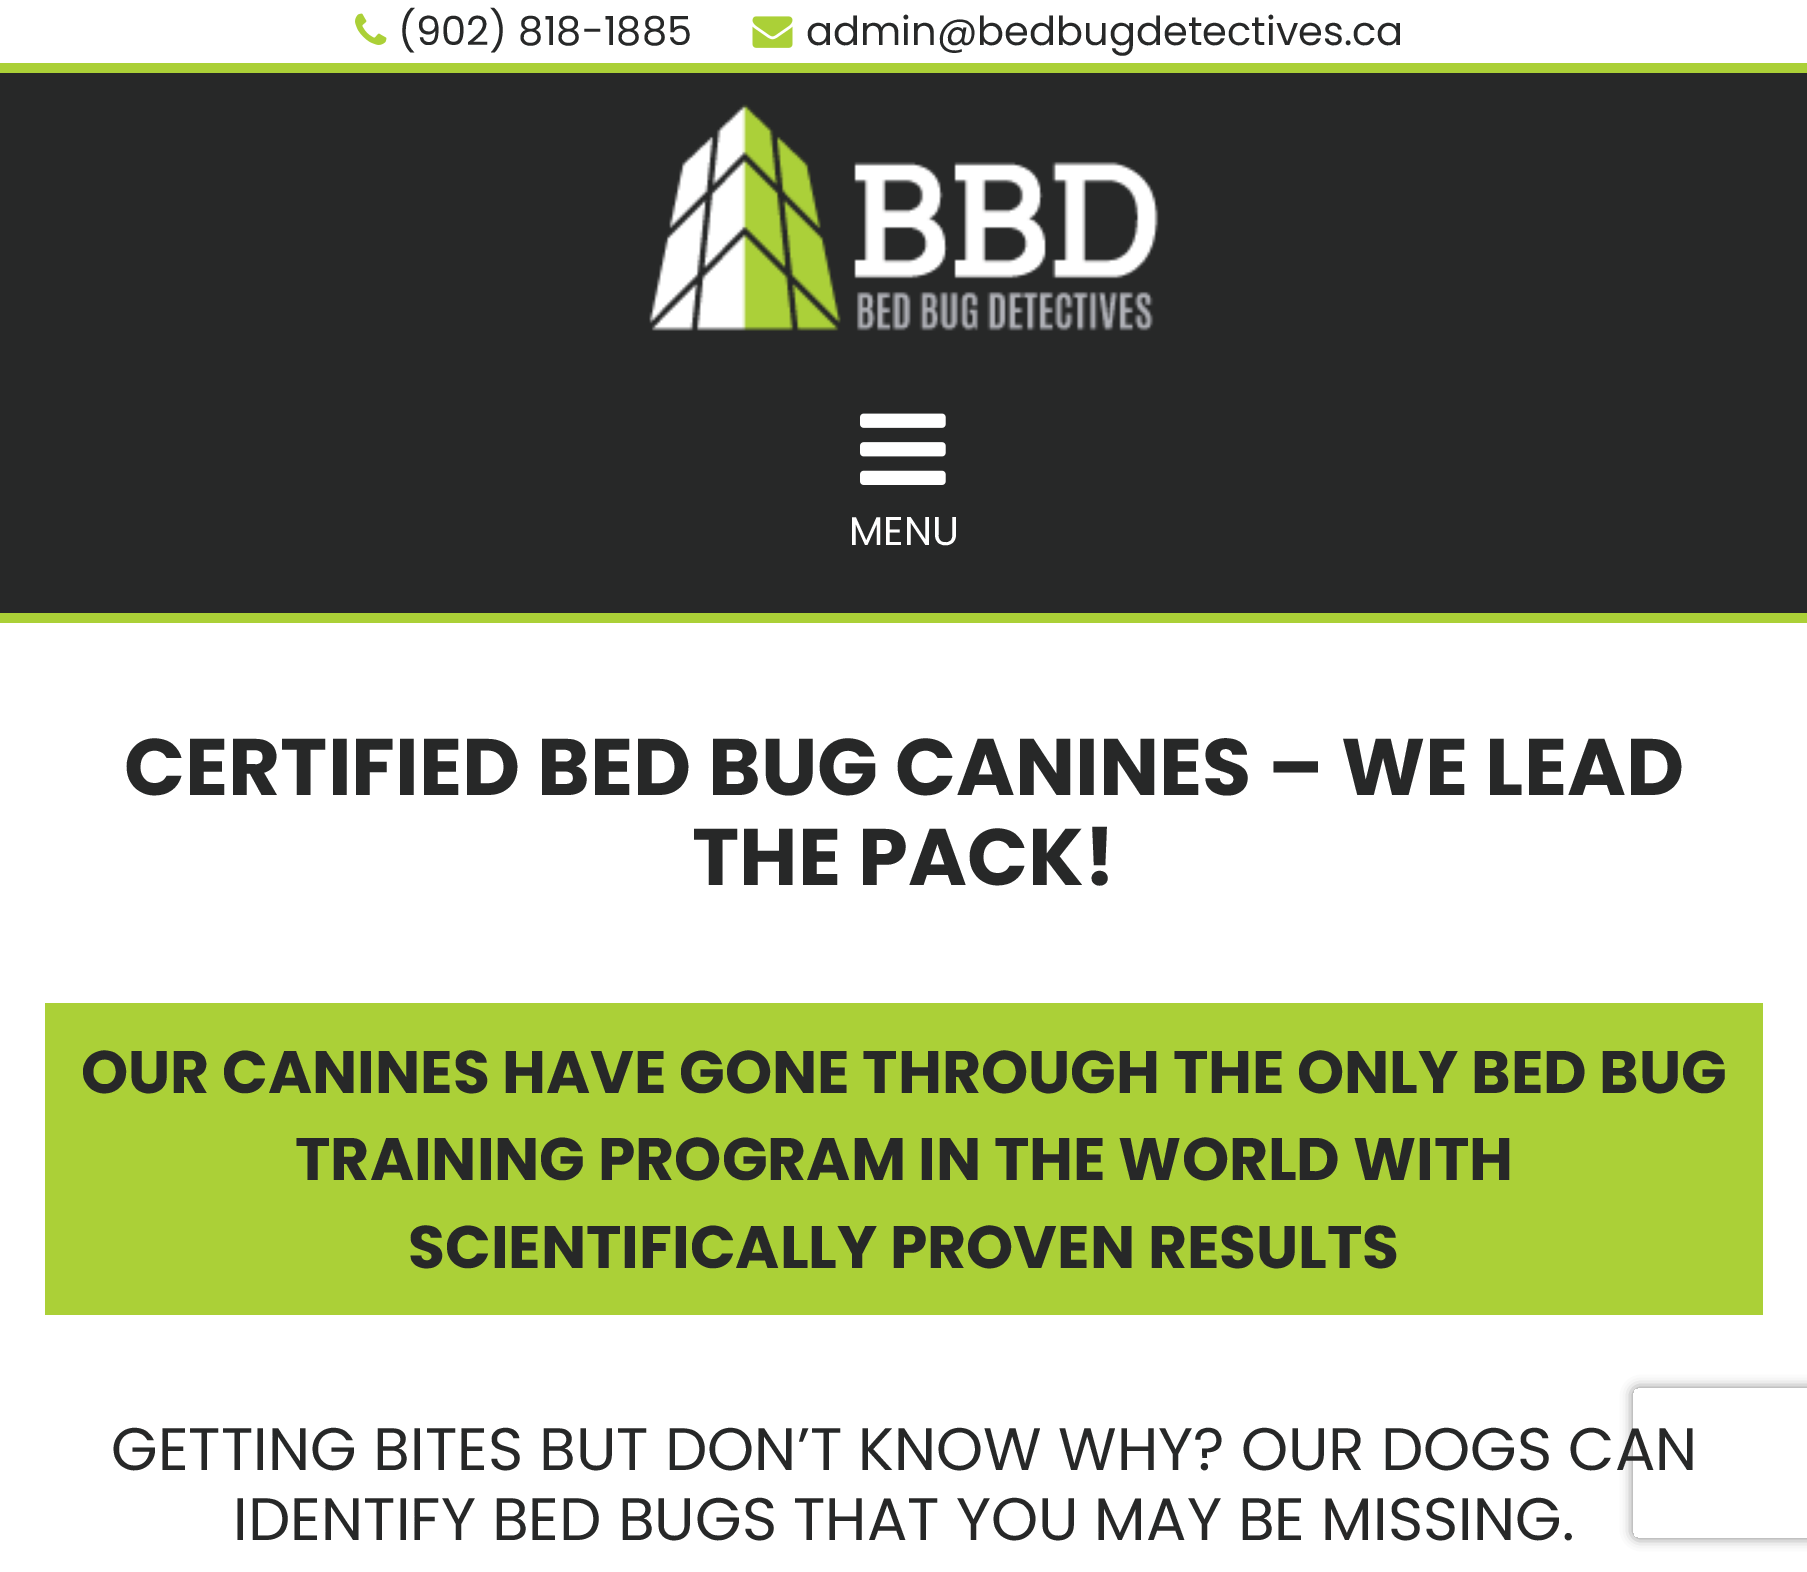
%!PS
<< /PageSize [1807 1572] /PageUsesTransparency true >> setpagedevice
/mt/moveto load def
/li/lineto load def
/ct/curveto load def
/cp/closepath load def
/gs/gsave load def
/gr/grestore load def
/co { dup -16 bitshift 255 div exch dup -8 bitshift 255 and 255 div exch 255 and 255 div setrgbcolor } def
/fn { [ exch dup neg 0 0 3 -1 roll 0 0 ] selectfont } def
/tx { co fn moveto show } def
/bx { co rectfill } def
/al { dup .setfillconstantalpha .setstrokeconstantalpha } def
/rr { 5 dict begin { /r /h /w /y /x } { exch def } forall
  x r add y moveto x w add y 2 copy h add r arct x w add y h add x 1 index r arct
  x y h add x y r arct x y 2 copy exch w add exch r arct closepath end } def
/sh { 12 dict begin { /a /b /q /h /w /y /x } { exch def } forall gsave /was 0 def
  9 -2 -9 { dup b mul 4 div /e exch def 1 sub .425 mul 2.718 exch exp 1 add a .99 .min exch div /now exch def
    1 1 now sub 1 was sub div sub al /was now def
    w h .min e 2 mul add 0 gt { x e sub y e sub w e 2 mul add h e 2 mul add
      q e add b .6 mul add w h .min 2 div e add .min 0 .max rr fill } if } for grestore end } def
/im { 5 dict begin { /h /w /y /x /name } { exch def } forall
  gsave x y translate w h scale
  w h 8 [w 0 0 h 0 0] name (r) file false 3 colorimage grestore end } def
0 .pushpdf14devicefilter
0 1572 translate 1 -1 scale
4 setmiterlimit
0 0 1807 1572 16#FFFFFF bx
(media/1.raw) 355 13 32 32 im
(media/2.raw) 752 16 41 32 im
0 73 1807 540 16#272828 bx
0 63 1807 10 16#ABD037 bx
0 613 1807 10 16#ABD037 bx
(media/3.raw) 649 104 510 227 im
(media/4.raw) 860 413 86 72 im
45 1003 1718 312 16#ABD037 bx
gs
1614 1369 mt 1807 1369 li 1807 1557 li 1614 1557 li cp 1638 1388 mt 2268 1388 li 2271 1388 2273 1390 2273 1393 ct 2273 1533 li 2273 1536 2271 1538 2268 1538 ct 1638 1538 li 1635 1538 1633 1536 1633 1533 ct 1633 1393 li 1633 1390 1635 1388 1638 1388 ct cp eoclip newpath
16#808080 co
1633 1388 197 150 5 6 1 sh
gr
(\(902\) 818-1885) 398 45 /Poppins-Regular 40 16#272828 tx
(admin@bedbugdetectives.ca) 806 45 /Poppins-Regular 40 16#272828 tx
(MENU) 849 545 /Poppins-Regular 40 16#FFFFFF tx
(CERTIFIED BED BUG CANINES – WE LEAD) 124 795 /Poppins-Bold 80 16#272828 tx
(THE PACK!) 692 885 /Poppins-Bold 80 16#272828 tx
(OUR CANINES HAVE GONE THROUGH THE ONLY BED BUG) 81 1093 /Poppins-Bold 60 16#272828 tx
(TRAINING PROGRAM IN THE WORLD WITH) 295 1180 /Poppins-Bold 60 16#272828 tx
(SCIENTIFICALLY PROVEN RESULTS) 408 1268 /Poppins-Bold 60 16#272828 tx
(GETTING BITES BUT DON’T KNOW WHY? OUR DOGS CAN) 111 1470 /Poppins-Regular 60 16#272828 tx
(IDENTIFY BED BUGS THAT YOU MAY BE MISSING.) 233 1540 /Poppins-Regular 60 16#272828 tx
.poppdf14devicefilter showpage
